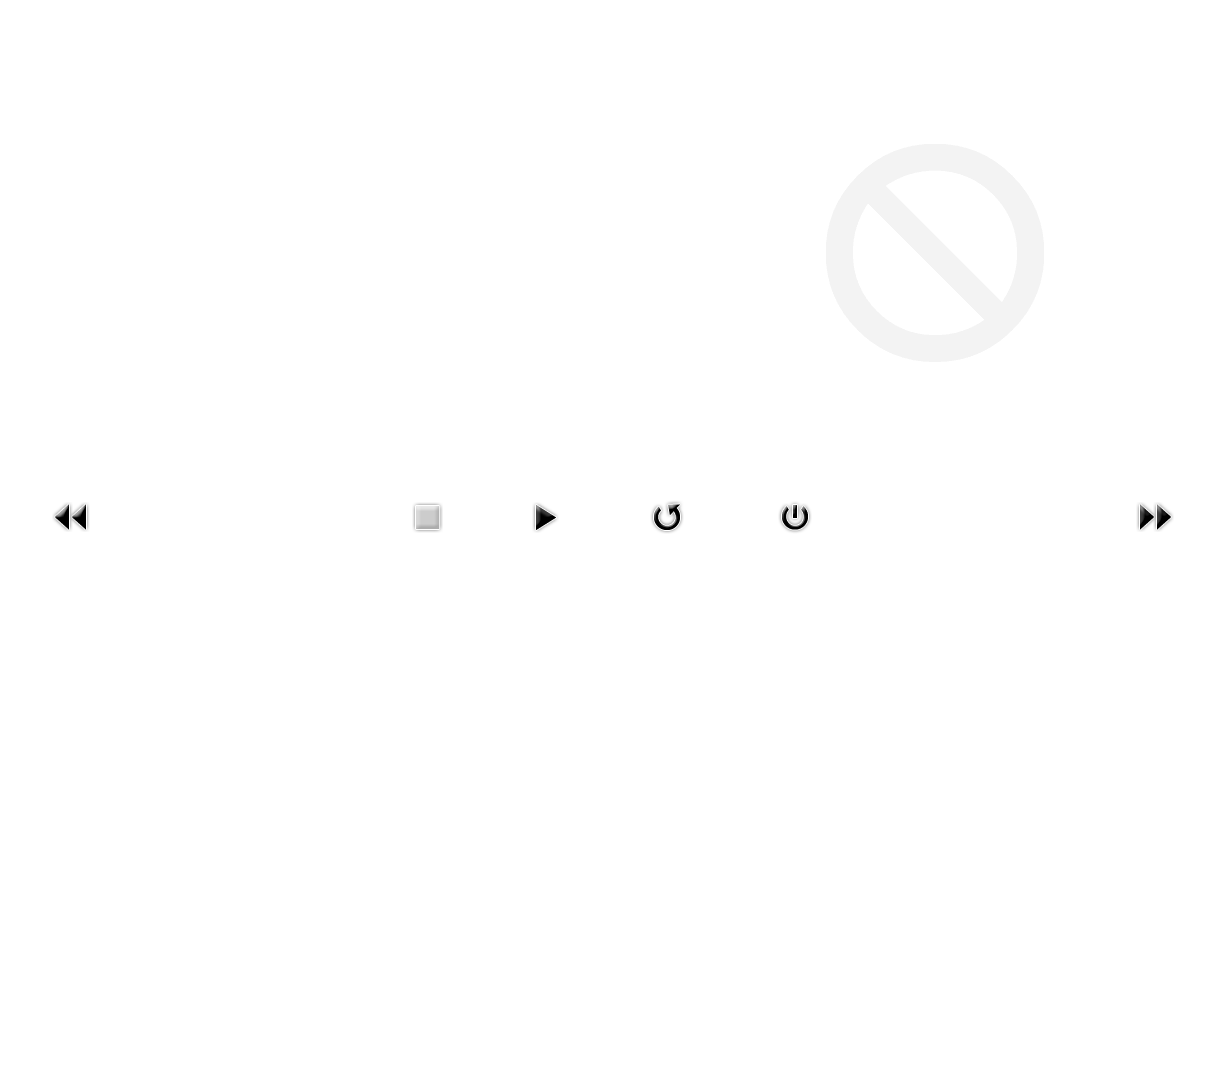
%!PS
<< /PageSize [1227 1079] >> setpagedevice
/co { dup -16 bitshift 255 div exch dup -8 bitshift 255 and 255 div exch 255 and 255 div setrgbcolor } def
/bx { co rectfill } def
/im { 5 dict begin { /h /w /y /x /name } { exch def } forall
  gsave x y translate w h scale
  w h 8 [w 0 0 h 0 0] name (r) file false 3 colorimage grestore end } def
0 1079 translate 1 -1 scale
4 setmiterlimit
0 0 1227 1079 16#FFFFFF bx
(media/1.raw) 826 144 218 218 im
(media/2.raw) 52 502 38 30 im
(media/3.raw) 412 502 31 31 im
(media/4.raw) 532 502 27 31 im
(media/5.raw) 650 500 34 34 im
(media/6.raw) 778 501 34 33 im
(media/7.raw) 1136 502 38 30 im
showpage
